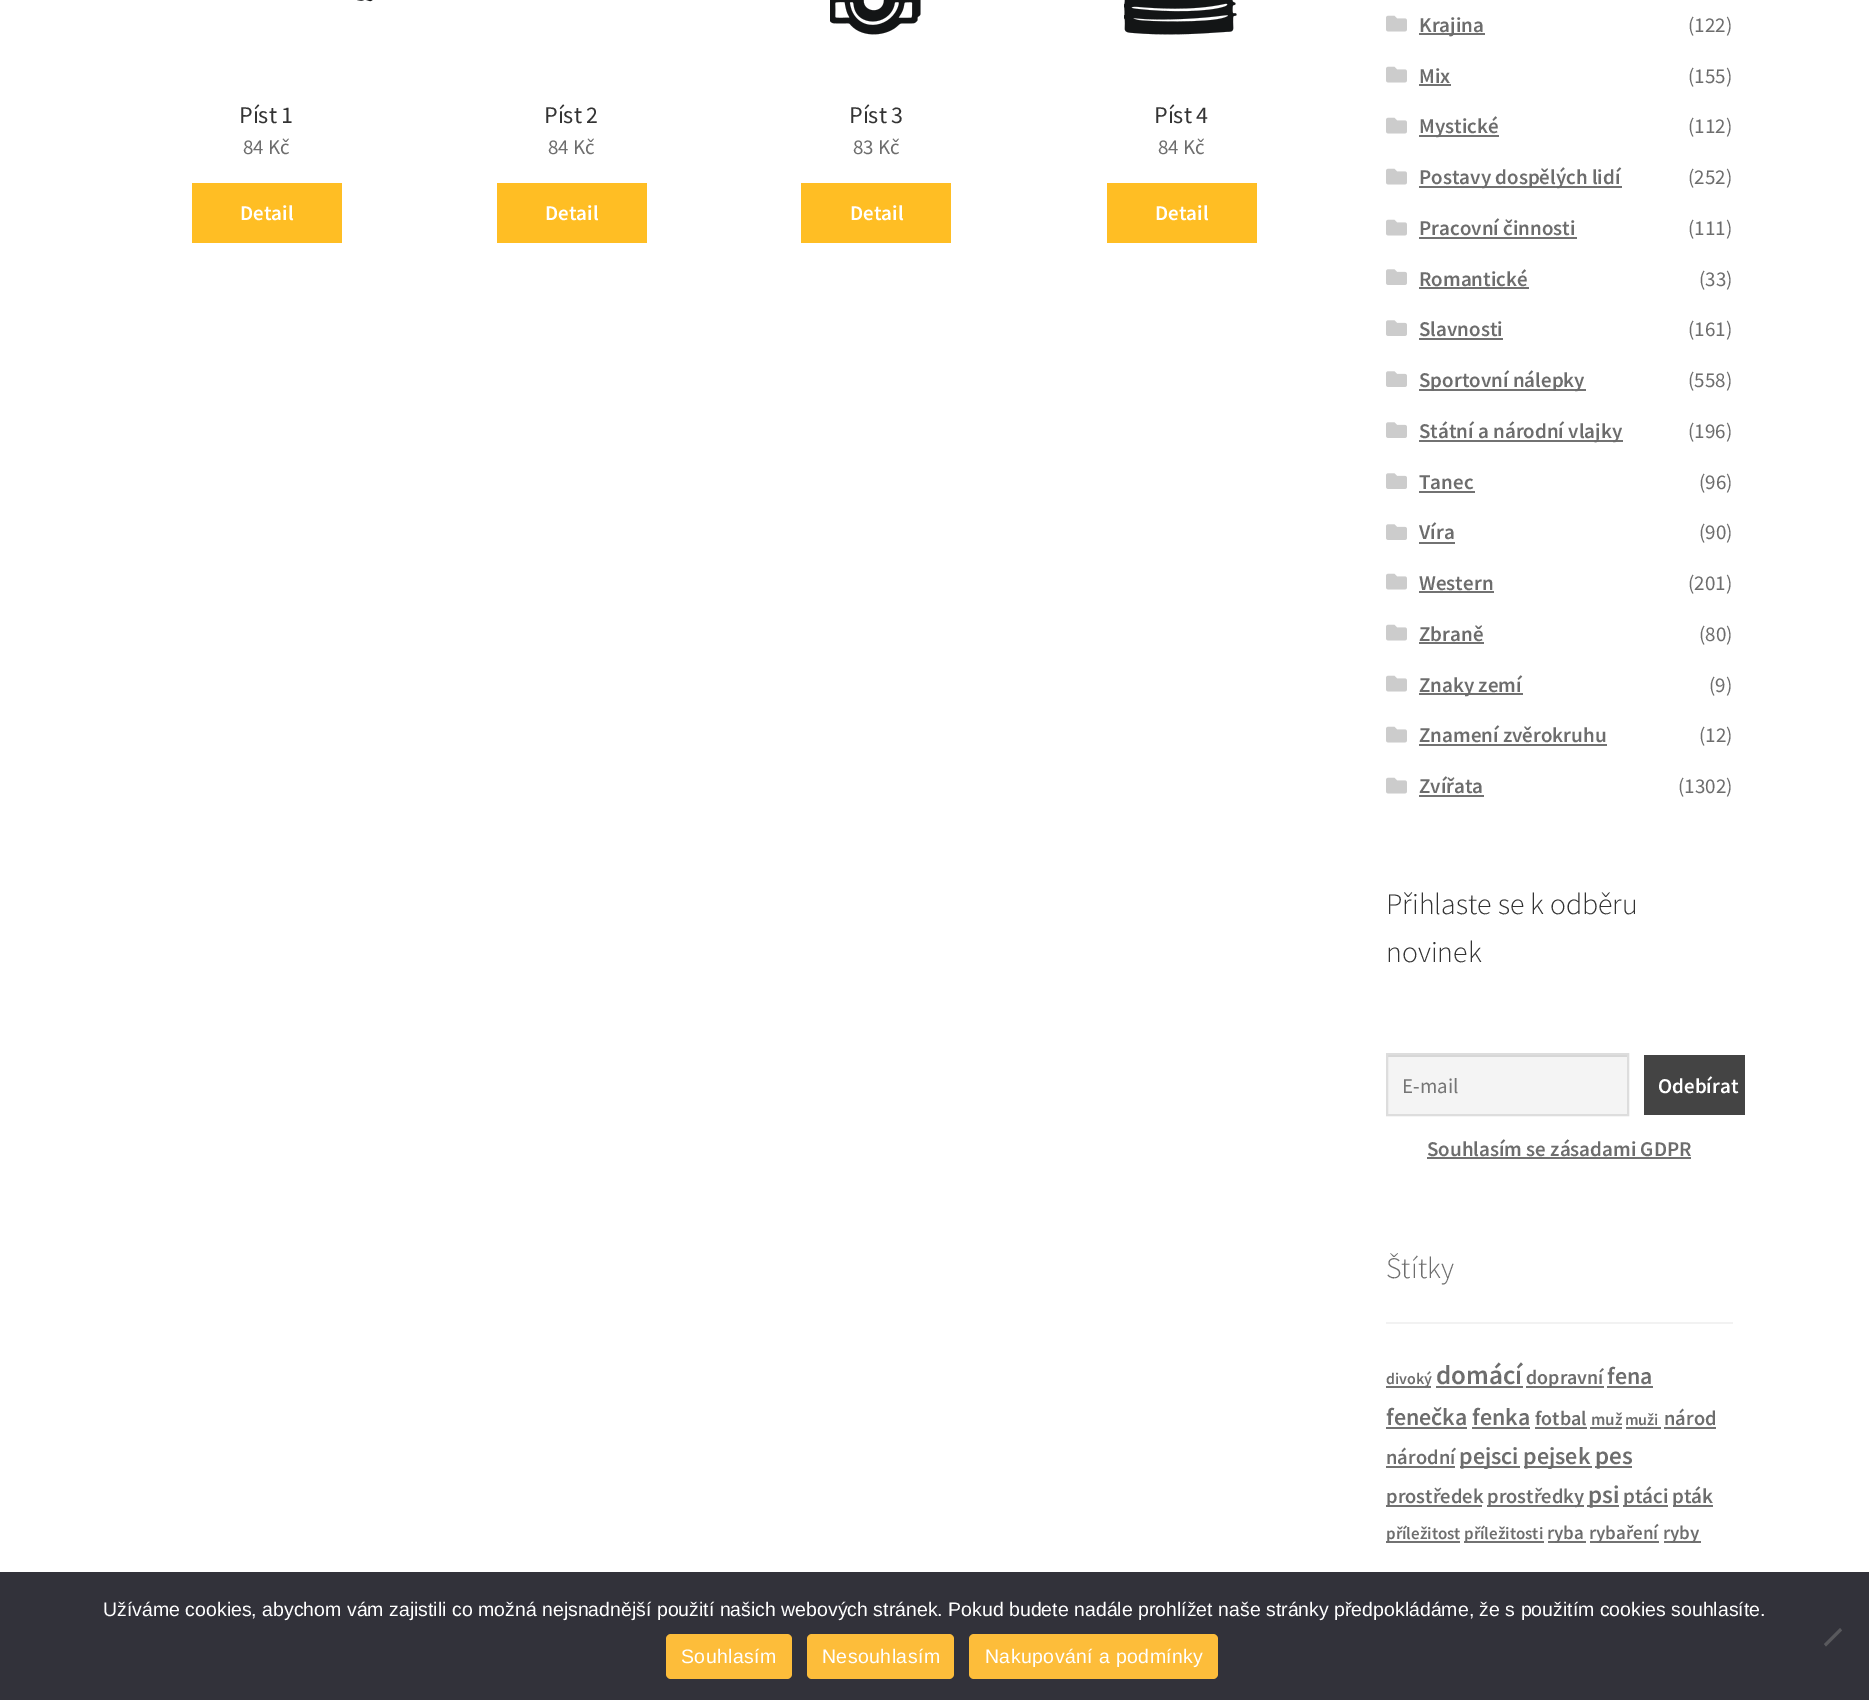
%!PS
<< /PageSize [1869 1700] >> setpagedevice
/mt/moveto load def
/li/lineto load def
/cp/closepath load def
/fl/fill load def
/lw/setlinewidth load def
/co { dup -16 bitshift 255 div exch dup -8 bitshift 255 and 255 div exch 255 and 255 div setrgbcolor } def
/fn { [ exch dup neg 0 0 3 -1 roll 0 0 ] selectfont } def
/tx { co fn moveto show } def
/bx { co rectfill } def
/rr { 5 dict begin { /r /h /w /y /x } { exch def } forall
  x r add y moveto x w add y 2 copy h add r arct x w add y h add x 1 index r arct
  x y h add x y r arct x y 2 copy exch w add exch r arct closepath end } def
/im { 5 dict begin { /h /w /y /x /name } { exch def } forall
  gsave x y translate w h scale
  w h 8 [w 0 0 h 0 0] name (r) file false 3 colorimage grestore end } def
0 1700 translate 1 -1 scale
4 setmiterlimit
0 0 1869 1700 16#FFFFFF bx
(media/1.raw) 357 0 16 2 im
192 183 150 60 16#FFBE24 bx
497 183 150 60 16#FFBE24 bx
(media/2.raw) 830 0 91 35 im
801 183 150 60 16#FFBE24 bx
(media/3.raw) 1124 0 113 35 im
1107 183 150 60 16#FFBE24 bx
(media/4.raw) 1386 15 21 17 im
1419 33 66 2 16#727272 bx
(media/4.raw) 1386 66 21 17 im
1419 84 32 2 16#727272 bx
(media/4.raw) 1386 117 21 17 im
1419 135 80 2 16#727272 bx
(media/4.raw) 1386 168 21 17 im
1419 186 203 2 16#727272 bx
(media/4.raw) 1386 219 21 17 im
1419 237 158 2 16#727272 bx
(media/5.raw) 1386 269 21 16 im
1419 287 110 2 16#727272 bx
(media/5.raw) 1386 320 21 16 im
1419 338 84 2 16#727272 bx
(media/5.raw) 1386 371 21 16 im
1419 389 167 2 16#727272 bx
(media/5.raw) 1386 422 21 16 im
1419 440 204 2 16#727272 bx
(media/5.raw) 1386 473 21 16 im
1419 491 56 2 16#727272 bx
(media/5.raw) 1386 524 21 16 im
1419 542 36 2 16#727272 bx
(media/4.raw) 1386 573 21 17 im
1419 591 75 2 16#727272 bx
(media/4.raw) 1386 624 21 17 im
1419 642 65 2 16#727272 bx
(media/4.raw) 1386 675 21 17 im
1419 693 104 2 16#727272 bx
(media/4.raw) 1386 726 21 17 im
1419 744 188 2 16#727272 bx
(media/4.raw) 1386 777 21 17 im
1419 795 65 2 16#727272 bx
1388 1057 239 57 16#F4F4F4 bx
1388 1055 240 2 16#D6D6D6 bx
16#DDDDDD co
2 lw
1387 1054 241 61 rectstroke
1644 1055 101 60 16#444444 bx
1427 1157 264 2 16#727272 bx
1386 1322 347 2 16#F2F2F2 bx
1386 1386 45 2 16#727272 bx
1436 1386 87 2 16#727272 bx
1526 1386 78 2 16#727272 bx
1607 1386 46 2 16#727272 bx
1386 1427 81 2 16#727272 bx
1472 1427 58 2 16#727272 bx
1535 1427 52 2 16#727272 bx
1590 1427 32 2 16#727272 bx
1626 1427 35 2 16#727272 bx
1664 1427 52 2 16#727272 bx
1386 1466 69 2 16#727272 bx
1460 1466 60 2 16#727272 bx
1524 1466 68 2 16#727272 bx
1595 1466 37 2 16#727272 bx
1386 1505 96 2 16#727272 bx
1487 1505 97 2 16#727272 bx
1587 1505 32 2 16#727272 bx
1623 1505 45 2 16#727272 bx
1673 1505 40 2 16#727272 bx
1386 1541 74 2 16#727272 bx
1464 1541 80 2 16#727272 bx
1548 1541 38 2 16#727272 bx
1590 1541 69 2 16#727272 bx
1664 1541 37 2 16#727272 bx
0 1572 1869 128 16#32323A bx
16#59595D co
1840 1628 mt 1842 1630.5 li 1826 1646.5 li 1824 1644 li cp fl
16#FDBD3A co
666 1634 126 45 5 rr fl
807 1634 147 45 5 rr fl
969 1634 249 45 5 rr fl
(Píst 1) 239 123 /SourceSansPro-Regular 24 16#333333 tx
(84 Kč) 243 154 /SourceSansPro-Regular 21 16#6D6D6D tx
(Detail) 240 220 /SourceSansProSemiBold-SemiBold 21 16#FFFFFF tx
(Píst 2) 544 123 /SourceSansPro-Regular 24 16#333333 tx
(84 Kč) 548 154 /SourceSansPro-Regular 21 16#6D6D6D tx
(Detail) 545 220 /SourceSansProSemiBold-SemiBold 21 16#FFFFFF tx
(Píst 3) 849 123 /SourceSansPro-Regular 24 16#333333 tx
(83 Kč) 853 154 /SourceSansPro-Regular 21 16#6D6D6D tx
(Detail) 850 220 /SourceSansProSemiBold-SemiBold 21 16#FFFFFF tx
(Píst 4) 1154 123 /SourceSansPro-Regular 24 16#333333 tx
(84 Kč) 1158 154 /SourceSansPro-Regular 21 16#6D6D6D tx
(Detail) 1155 220 /SourceSansProSemiBold-SemiBold 21 16#FFFFFF tx
(Krajina) 1419 32 /SourceSansProSemiBold-SemiBold 21 16#6D6D6D tx
(\(122\)) 1688 32 /SourceSansPro-Regular 21 16#6D6D6D tx
(Mix) 1419 83 /SourceSansProSemiBold-SemiBold 21 16#6D6D6D tx
(\(155\)) 1688 83 /SourceSansPro-Regular 21 16#6D6D6D tx
(Mystické) 1419 133 /SourceSansProSemiBold-SemiBold 21 16#6D6D6D tx
(\(112\)) 1688 133 /SourceSansPro-Regular 21 16#6D6D6D tx
(Postavy dospělých lidí) 1419 184 /SourceSansProSemiBold-SemiBold 21 16#6D6D6D tx
(\(252\)) 1688 184 /SourceSansPro-Regular 21 16#6D6D6D tx
(Pracovní činnosti) 1419 235 /SourceSansProSemiBold-SemiBold 21 16#6D6D6D tx
(\(111\)) 1688 235 /SourceSansPro-Regular 21 16#6D6D6D tx
(Romantické) 1419 286 /SourceSansProSemiBold-SemiBold 21 16#6D6D6D tx
(\(33\)) 1699 286 /SourceSansPro-Regular 21 16#6D6D6D tx
(Slavnosti) 1419 336 /SourceSansProSemiBold-SemiBold 21 16#6D6D6D tx
(\(161\)) 1688 336 /SourceSansPro-Regular 21 16#6D6D6D tx
(Sportovní nálepky) 1419 387 /SourceSansProSemiBold-SemiBold 21 16#6D6D6D tx
(\(558\)) 1688 387 /SourceSansPro-Regular 21 16#6D6D6D tx
(Státní a národní vlajky) 1419 438 /SourceSansProSemiBold-SemiBold 21 16#6D6D6D tx
(\(196\)) 1688 438 /SourceSansPro-Regular 21 16#6D6D6D tx
(Tanec) 1419 489 /SourceSansProSemiBold-SemiBold 21 16#6D6D6D tx
(\(96\)) 1699 489 /SourceSansPro-Regular 21 16#6D6D6D tx
(Víra) 1419 539 /SourceSansProSemiBold-SemiBold 21 16#6D6D6D tx
(\(90\)) 1699 539 /SourceSansPro-Regular 21 16#6D6D6D tx
(Western) 1419 590 /SourceSansProSemiBold-SemiBold 21 16#6D6D6D tx
(\(201\)) 1688 590 /SourceSansPro-Regular 21 16#6D6D6D tx
(Zbraně) 1419 641 /SourceSansProSemiBold-SemiBold 21 16#6D6D6D tx
(\(80\)) 1699 641 /SourceSansPro-Regular 21 16#6D6D6D tx
(Znaky zemí) 1419 692 /SourceSansProSemiBold-SemiBold 21 16#6D6D6D tx
(\(9\)) 1709 692 /SourceSansPro-Regular 21 16#6D6D6D tx
(Znamení zvěrokruhu) 1419 742 /SourceSansProSemiBold-SemiBold 21 16#6D6D6D tx
(\(12\)) 1699 742 /SourceSansPro-Regular 21 16#6D6D6D tx
(Zvířata) 1419 793 /SourceSansProSemiBold-SemiBold 21 16#6D6D6D tx
(\(1302\)) 1678 793 /SourceSansPro-Regular 21 16#6D6D6D tx
(Přihlaste se k odběru) 1386 914 /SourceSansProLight-Light 29.75 16#333333 tx
(novinek) 1386 962 /SourceSansProLight-Light 29.75 16#333333 tx
(E-mail) 1402 1093 /SourceSansPro-Regular 21 16#757575 tx
(Odebírat) 1658 1093 /SourceSansProSemiBold-SemiBold 21 16#FFFFFF tx
(Souhlasím se zásadami GDPR) 1427 1156 /SourceSansProSemiBold-SemiBold 21 16#6D6D6D tx
(Štítky) 1386 1278 /SourceSansProLight-Light 29.75 16#6D6D6D tx
(divoký) 1386 1384 /SourceSansProSemiBold-SemiBold 16 16#6D6D6D tx
(domácí) 1436 1384 /SourceSansProSemiBold-SemiBold 27 16#6D6D6D tx
(dopravní) 1526 1384 /SourceSansProSemiBold-SemiBold 20 16#6D6D6D tx
(fena) 1607 1384 /SourceSansProSemiBold-SemiBold 24 16#6D6D6D tx
(fenečka) 1386 1425 /SourceSansProSemiBold-SemiBold 24 16#6D6D6D tx
(fenka) 1472 1425 /SourceSansProSemiBold-SemiBold 24 16#6D6D6D tx
(fotbal) 1535 1425 /SourceSansProSemiBold-SemiBold 20 16#6D6D6D tx
(muž) 1591 1425 /SourceSansProSemiBold-SemiBold 17 16#6D6D6D tx
(muži) 1625 1425 /SourceSansProSemiBold-SemiBold 16 16#6D6D6D tx
(národ) 1664 1425 /SourceSansProSemiBold-SemiBold 20.5 16#6D6D6D tx
(národní) 1386 1464 /SourceSansProSemiBold-SemiBold 20.5 16#6D6D6D tx
(pejsci) 1459 1464 /SourceSansProSemiBold-SemiBold 24 16#6D6D6D tx
(pejsek) 1523 1464 /SourceSansProSemiBold-SemiBold 24 16#6D6D6D tx
(pes) 1595 1464 /SourceSansProSemiBold-SemiBold 25 16#6D6D6D tx
(prostředek) 1386 1503 /SourceSansProSemiBold-SemiBold 20.5 16#6D6D6D tx
(prostředky) 1487 1503 /SourceSansProSemiBold-SemiBold 20.5 16#6D6D6D tx
(psi) 1588 1503 /SourceSansProSemiBold-SemiBold 25 16#6D6D6D tx
(ptáci) 1623 1503 /SourceSansProSemiBold-SemiBold 21 16#6D6D6D tx
(pták) 1672 1503 /SourceSansProSemiBold-SemiBold 21 16#6D6D6D tx
(příležitost) 1386 1539 /SourceSansProSemiBold-SemiBold 17 16#6D6D6D tx
(příležitosti) 1464 1539 /SourceSansProSemiBold-SemiBold 17 16#6D6D6D tx
(ryba) 1547 1539 /SourceSansProSemiBold-SemiBold 19 16#6D6D6D tx
(rybaření) 1589 1539 /SourceSansProSemiBold-SemiBold 19 16#6D6D6D tx
(ryby) 1663 1539 /SourceSansProSemiBold-SemiBold 19 16#6D6D6D tx
(Užíváme cookies, abychom vám zajistili co možná nejsnadnější použití našich webových stránek. Pokud budete nadále prohlížet naše stránky předpokládáme, že s použitím cookies souhlasíte.) 103 1616 /LiberationSans-Regular 19.5 16#FFFFFF tx
681 1663 mt .4 0 (Souhlasím) ashow
822 1663 mt .4 0 (Nesouhlasím) ashow
985 1663 mt .4 0 (Nakupování a podmínky) ashow
showpage
